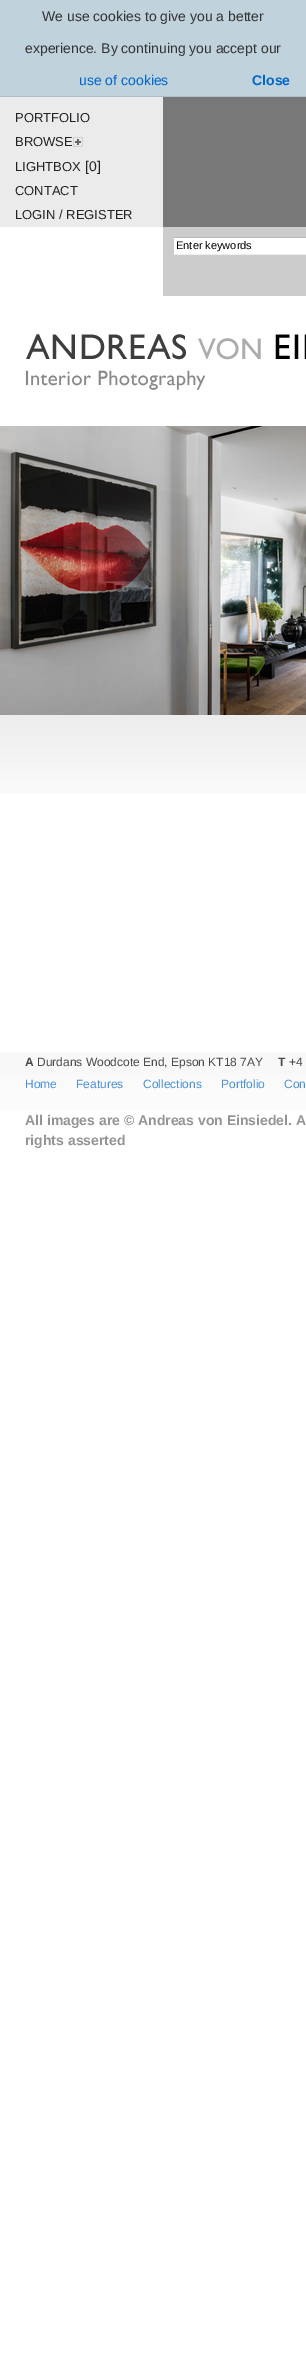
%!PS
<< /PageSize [306 2374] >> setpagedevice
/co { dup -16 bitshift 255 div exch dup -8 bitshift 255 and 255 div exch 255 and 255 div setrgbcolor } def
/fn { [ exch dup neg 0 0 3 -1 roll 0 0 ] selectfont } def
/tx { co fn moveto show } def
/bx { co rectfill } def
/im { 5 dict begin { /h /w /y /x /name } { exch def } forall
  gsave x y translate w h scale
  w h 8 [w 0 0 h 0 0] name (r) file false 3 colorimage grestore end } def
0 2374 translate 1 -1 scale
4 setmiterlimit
0 0 306 2374 16#FFFFFF bx
0 0 306 96 16#C0D2DC bx
0 96 306 1 16#ADBDC6 bx
0 97 163 130 16#EBEBEB bx
(media/1.raw) 73 137 10 10 im
163 97 143 130 16#787878 bx
163 227 143 69 16#CCCCCC bx
174 238 132 16 16#FFFFFF bx
173 237 133 1 16#BBBBBB bx
173 254 133 1 16#EEEEEE bx
173 237 1 18 16#CCCCCC bx
(media/2.raw) 25 334 281 56 im
(media/3.raw) 0 426 306 289 im
(media/4.raw) 0 715 306 79 im
(media/5.raw) 0 1052 306 58 im
(We use cookies to give you a better) 42 21 /LiberationSans-Regular 14 16#333333 tx
(experience. By continuing you accept our) 25 53 /LiberationSans-Regular 14 16#333333 tx
(use of cookies) 79 85 /LiberationSans-Regular 14 16#0066CC tx
(Close) 252 85 /LiberationSans-Bold 14 16#0066CC tx
(PORTFOLIO) 15 122 /LiberationSans-Regular 13 16#222222 tx
(BROWSE) 15 146 /LiberationSans-Regular 13 16#222222 tx
(LIGHTBOX) 15 171 /LiberationSans-Regular 13 16#222222 tx
([0]) 85 171 /LiberationSans-Regular 14 16#222222 tx
(CONTACT) 15 195 /LiberationSans-Regular 13 16#222222 tx
(LOGIN / REGISTER) 15 219 /LiberationSans-Regular 13 16#222222 tx
(Enter keywords) 176 249 /LiberationSans-Regular 11 16#000000 tx
(A) 25 1066 /LiberationSans-Bold 12 16#4A4A4A tx
(Durdans Woodcote End, Epson KT18 7AY) 37 1066 /LiberationSans-Regular 12 16#4A4A4A tx
(T) 278 1066 /LiberationSans-Bold 12 16#4A4A4A tx
(+4) 289 1066 /LiberationSans-Regular 12 16#4A4A4A tx
(Home) 25 1088 /LiberationSans-Regular 12 16#4B92DA tx
(Features) 76 1088 /LiberationSans-Regular 12 16#4B92DA tx
(Collections) 143 1088 /LiberationSans-Regular 12 16#4B92DA tx
(Portfolio) 221 1088 /LiberationSans-Regular 12 16#4B92DA tx
(Con) 284 1088 /LiberationSans-Regular 12 16#4B92DA tx
(All images are © Andreas von Einsiedel. A) 25 1125 /LiberationSans-Bold 14 16#949494 tx
(rights asserted) 25 1145 /LiberationSans-Bold 14 16#949494 tx
showpage
